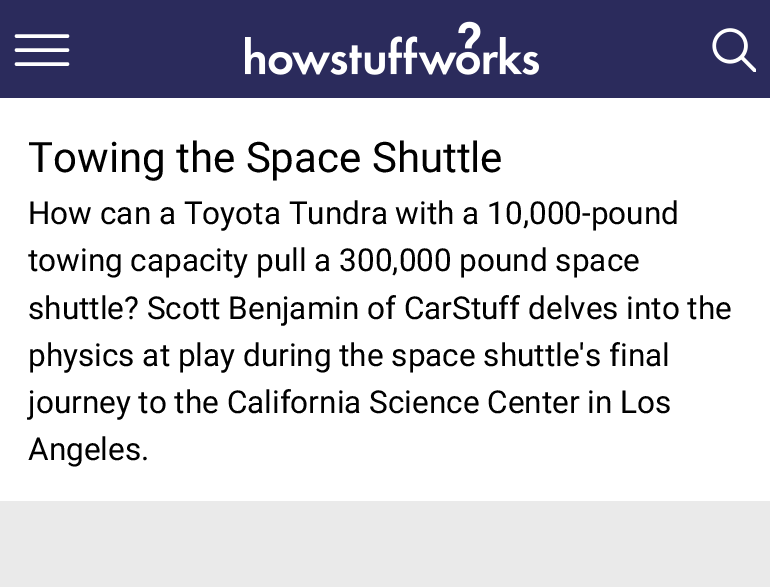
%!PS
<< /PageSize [770 587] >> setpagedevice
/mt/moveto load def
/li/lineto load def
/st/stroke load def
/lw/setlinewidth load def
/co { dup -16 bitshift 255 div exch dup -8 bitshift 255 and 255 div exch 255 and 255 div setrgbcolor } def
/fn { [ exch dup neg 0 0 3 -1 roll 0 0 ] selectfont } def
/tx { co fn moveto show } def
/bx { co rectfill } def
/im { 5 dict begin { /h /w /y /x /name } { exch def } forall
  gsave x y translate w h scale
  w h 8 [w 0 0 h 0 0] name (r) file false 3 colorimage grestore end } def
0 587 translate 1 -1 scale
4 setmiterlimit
0 0 770 587 16#FFFFFF bx
0 0 770 98 16#2B2B5C bx
16#FFFFFF co
3.5 lw
1 setlinecap
16.5 36 mt 67.5 36 li 16.5 50 mt 67.5 50 li 16.5 64 mt 67.5 64 li st
(media/1.raw) 245 21 294 54 im
(media/2.raw) 712 28 44 44 im
0 501 770 86 16#EAEAEA bx
(Towing the Space Shuttle) 28 172 /Roboto-Regular 42 16#000000 tx
(How can a Toyota Tundra with a 10,000-pound) 28 224 /Roboto-Regular 31.5 16#000000 tx
(towing capacity pull a 300,000 pound space) 28 271 /Roboto-Regular 31.5 16#000000 tx
(shuttle? Scott Benjamin of CarStuff delves into the) 28 319 /Roboto-Regular 31.5 16#000000 tx
(physics at play during the space shuttle's final) 28 366 /Roboto-Regular 31.5 16#000000 tx
(journey to the California Science Center in Los) 28 413 /Roboto-Regular 31.5 16#000000 tx
(Angeles.) 28 460 /Roboto-Regular 31.5 16#000000 tx
showpage
